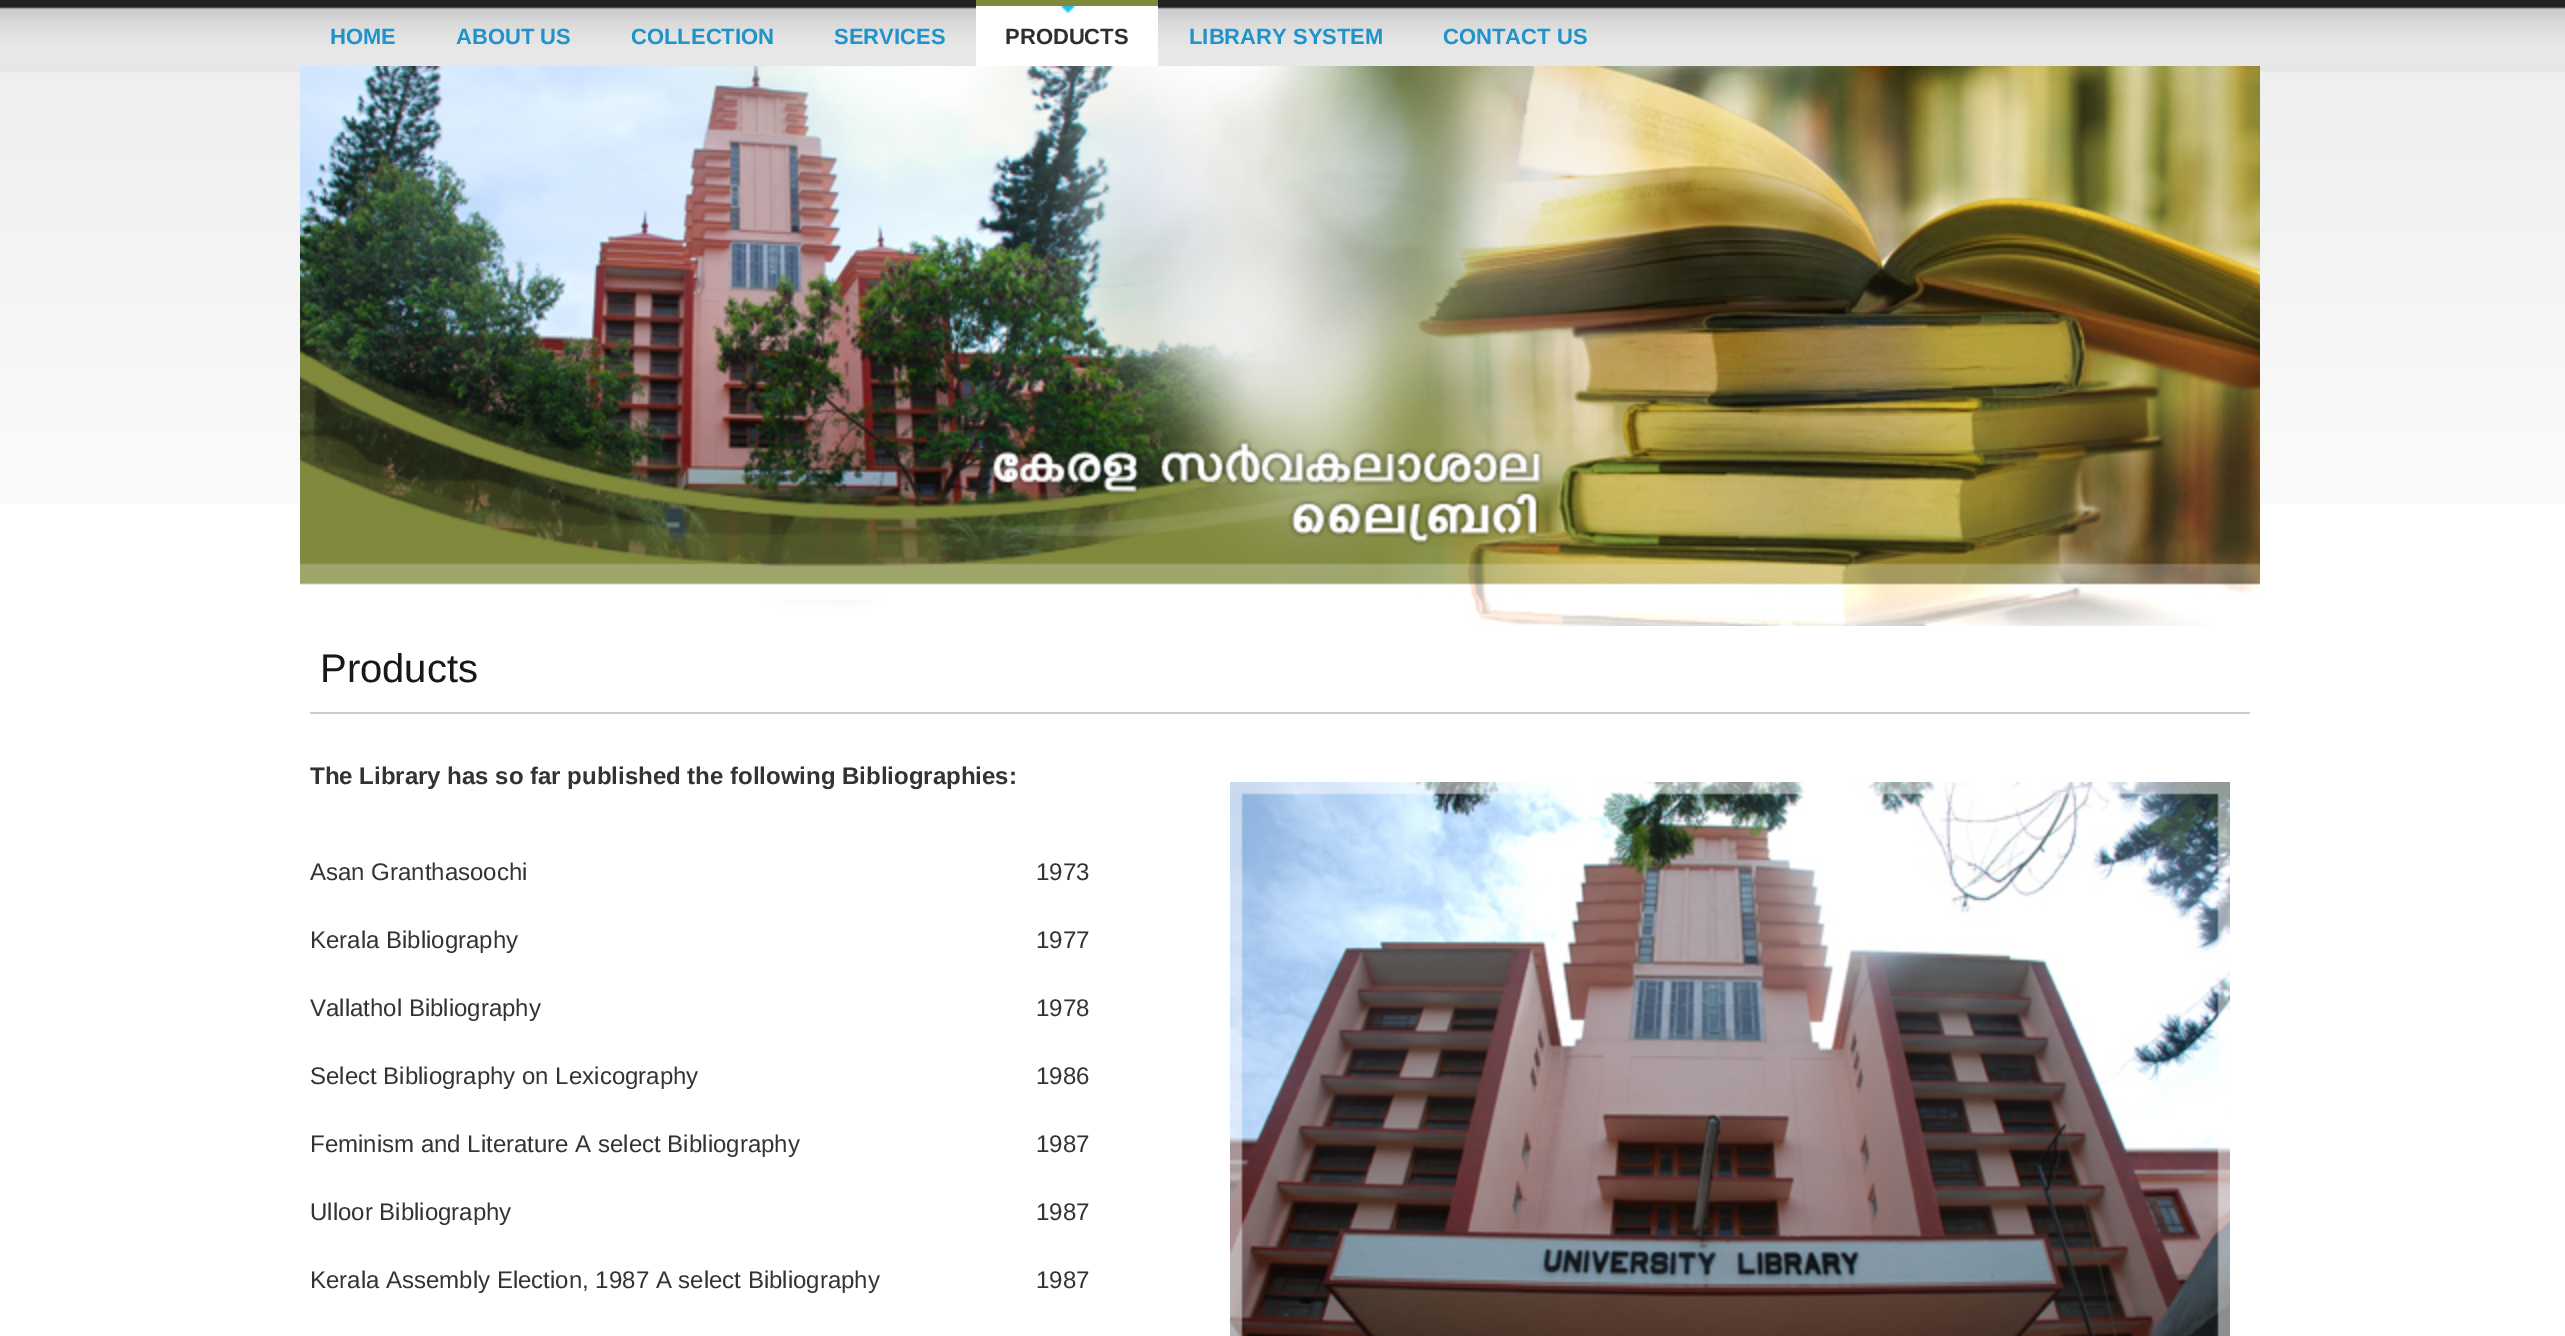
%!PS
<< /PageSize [2565 1336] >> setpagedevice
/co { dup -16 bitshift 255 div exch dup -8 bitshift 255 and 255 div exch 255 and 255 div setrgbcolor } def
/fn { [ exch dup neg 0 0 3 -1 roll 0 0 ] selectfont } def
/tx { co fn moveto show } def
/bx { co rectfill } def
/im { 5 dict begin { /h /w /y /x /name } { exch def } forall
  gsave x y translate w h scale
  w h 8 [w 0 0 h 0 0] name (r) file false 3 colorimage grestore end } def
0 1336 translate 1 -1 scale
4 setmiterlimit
0 0 2565 1336 16#FFFFFF bx
(media/1.raw) 0 0 2565 504 im
976 6 182 60 16#FFFFFF bx
(media/2.raw) 1059 6 18 8 im
976 0 182 6 16#81893C bx
(media/3.raw) 300 66 1960 560 im
310 712 1940 2 16#CCCCCC bx
(media/4.raw) 1230 782 1000 554 im
(HOME) 330 44 /LiberationSans-Bold 22 16#1F93CA tx
(ABOUT US) 456 44 /LiberationSans-Bold 22 16#1F93CA tx
(COLLECTION) 631 44 /LiberationSans-Bold 22 16#1F93CA tx
(SERVICES) 834 44 /LiberationSans-Bold 22 16#1F93CA tx
(PRODUCTS) 1005 44 /LiberationSans-Bold 22 16#2D2F2F tx
(LIBRARY SYSTEM) 1189 44 /LiberationSans-Bold 22 16#1F93CA tx
(CONTACT US) 1443 44 /LiberationSans-Bold 22 16#1F93CA tx
(Products) 320 682 /LiberationSans-Regular 40 16#181818 tx
(The Library has so far published the following Bibliographies:) 310 784 /LiberationSans-Bold 24 16#333333 tx
(Asan Granthasoochi) 310 880 /LiberationSans-Regular 24 16#333333 tx
(1973) 1036 880 /LiberationSans-Regular 24 16#333333 tx
(Kerala Bibliography) 310 948 /LiberationSans-Regular 24 16#333333 tx
(1977) 1036 948 /LiberationSans-Regular 24 16#333333 tx
(Vallathol Bibliography) 310 1016 /LiberationSans-Regular 24 16#333333 tx
(1978) 1036 1016 /LiberationSans-Regular 24 16#333333 tx
(Select Bibliography on Lexicography) 310 1084 /LiberationSans-Regular 24 16#333333 tx
(1986) 1036 1084 /LiberationSans-Regular 24 16#333333 tx
(Feminism and Literature A select Bibliography) 310 1152 /LiberationSans-Regular 24 16#333333 tx
(1987) 1036 1152 /LiberationSans-Regular 24 16#333333 tx
(Ulloor Bibliography) 310 1220 /LiberationSans-Regular 24 16#333333 tx
(1987) 1036 1220 /LiberationSans-Regular 24 16#333333 tx
(Kerala Assembly Election, 1987 A select Bibliography) 310 1288 /LiberationSans-Regular 24 16#333333 tx
(1987) 1036 1288 /LiberationSans-Regular 24 16#333333 tx
showpage
